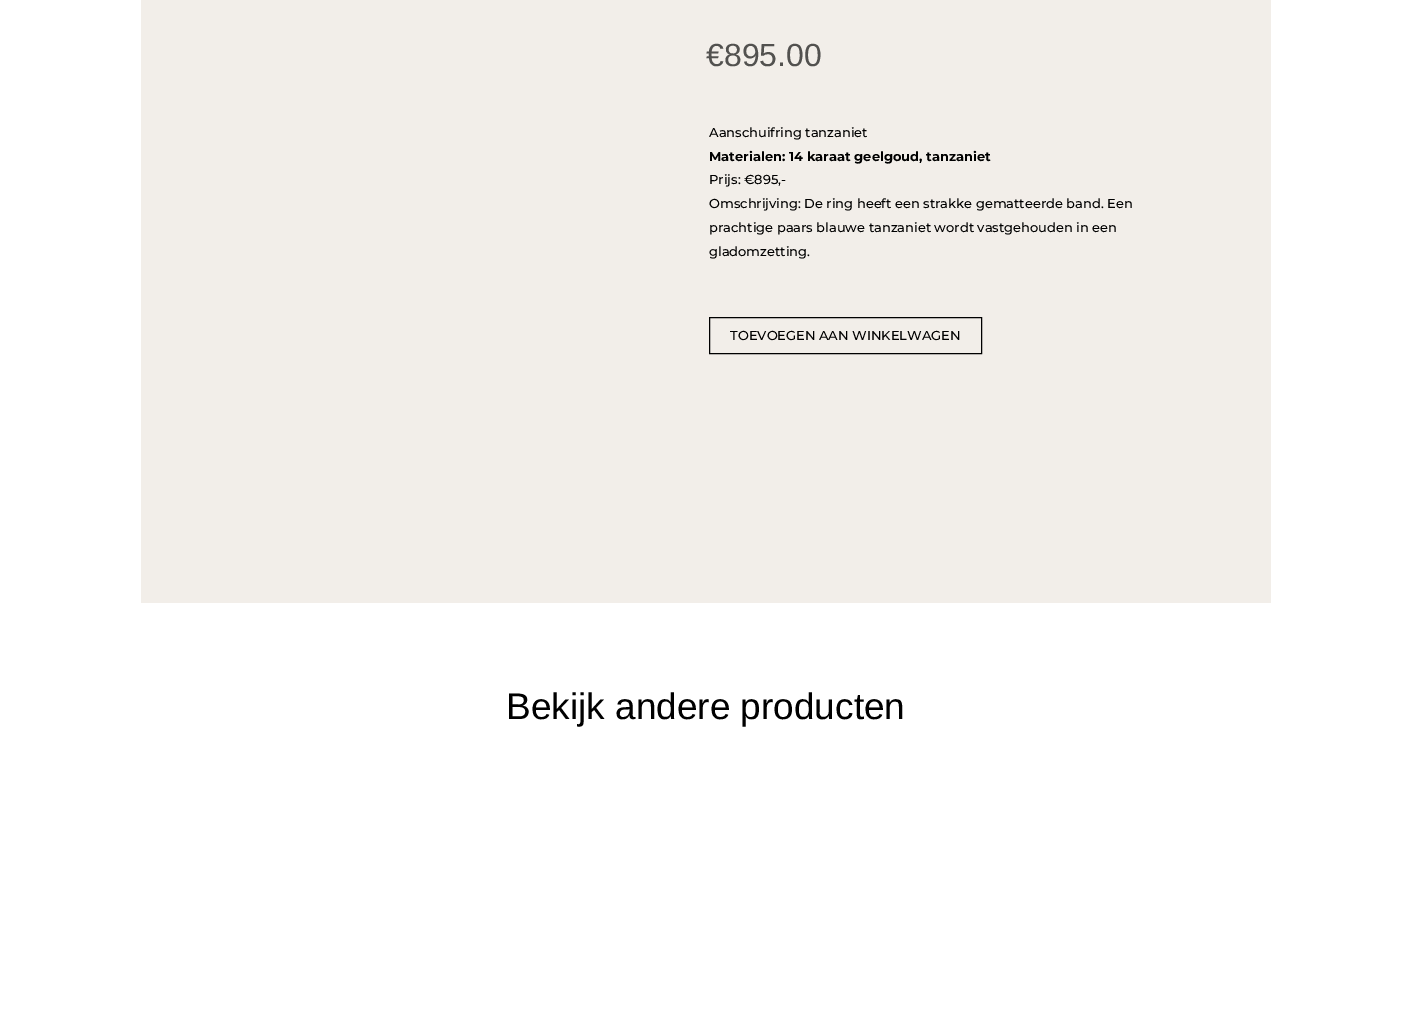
%!PS
<< /PageSize [1412 1027] >> setpagedevice
/co { dup -16 bitshift 255 div exch dup -8 bitshift 255 and 255 div exch 255 and 255 div setrgbcolor } def
/fn { [ exch dup neg 0 0 3 -1 roll 0 0 ] selectfont } def
/tx { co fn moveto show } def
/bx { co rectfill } def
0 1027 translate 1 -1 scale
4 setmiterlimit
0 0 1412 1027 16#FFFFFF bx
141 0 1130 603 16#F2EEE9 bx
16#000000 co
709.5 317.5 272 36 rectstroke
(€895.00) 706 66 /LiberationSans-Regular 32 16#52514F tx
(Aanschuifring tanzaniet) 709 137 /Montserrat-Medium 13 16#000000 tx
(Materialen: 14 karaat geelgoud, tanzaniet) 709 161 /Montserrat-Bold 13 16#000000 tx
(Prijs: €895,-) 709 184 /Montserrat-Medium 13 16#000000 tx
(Omschrijving: De ring heeft een strakke gematteerde band. Een) 709 208 /Montserrat-Medium 13 16#000000 tx
(prachtige paars blauwe tanzaniet wordt vastgehouden in een) 709 232 /Montserrat-Medium 13 16#000000 tx
(gladomzetting.) 709 256 /Montserrat-Medium 13 16#000000 tx
(TOEVOEGEN AAN WINKELWAGEN) 730 340 /Montserrat-Medium 13 16#000000 tx
(Bekijk andere producten) 506 719 /LiberationSans-Regular 37 16#000000 tx
showpage
